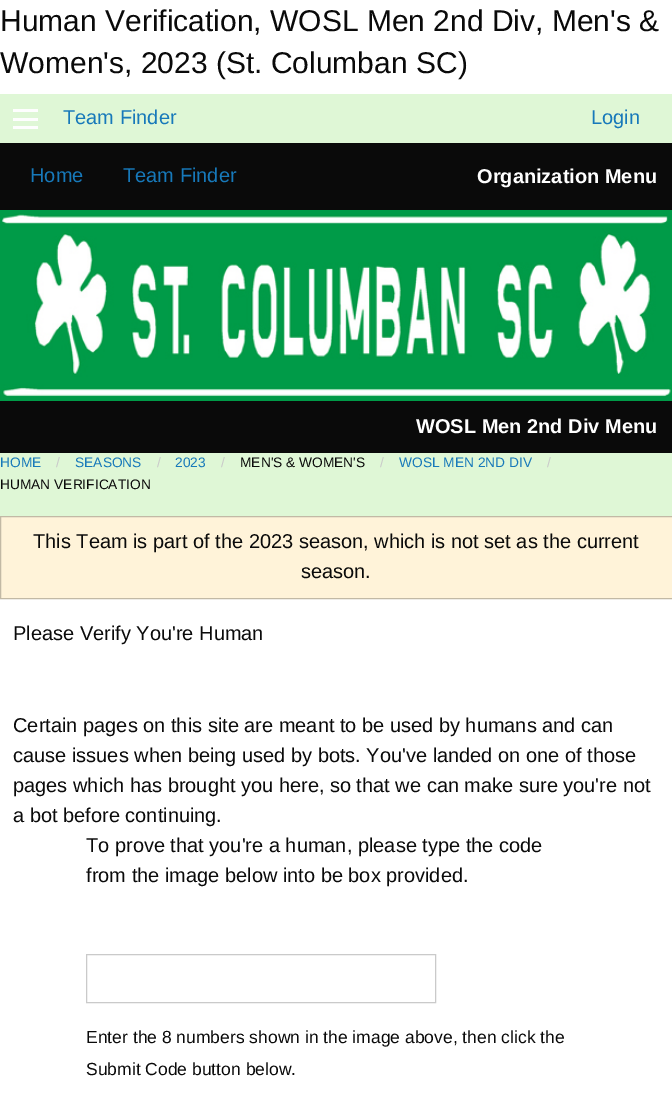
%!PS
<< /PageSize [672 1099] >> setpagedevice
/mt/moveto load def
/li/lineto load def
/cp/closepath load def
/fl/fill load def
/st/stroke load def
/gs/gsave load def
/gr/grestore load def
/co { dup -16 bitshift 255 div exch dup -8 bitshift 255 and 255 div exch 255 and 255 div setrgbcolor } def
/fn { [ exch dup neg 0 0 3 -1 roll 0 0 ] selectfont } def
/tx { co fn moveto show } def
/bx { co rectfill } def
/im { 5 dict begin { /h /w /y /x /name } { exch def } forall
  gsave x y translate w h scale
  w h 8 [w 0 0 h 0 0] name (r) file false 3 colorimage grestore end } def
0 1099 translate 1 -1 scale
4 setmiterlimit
0 0 672 1099 16#FFFFFF bx
0 94 672 422 16#DFF7D6 bx
13 126 25 3 16#FEFEFE bx
13 118 25 3 16#FEFEFE bx
13 109 25 3 16#FEFEFE bx
0 143 672 67 16#0A0A0A bx
0 210 672 3 16#009B48 bx
(media/1.raw) 0 213 672 188 im
0 401 672 52 16#0A0A0A bx
16#FFF3D9 co
.5 516.5 mt 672.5 516.5 li 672.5 598.5 li .5 598.5 li cp gs fl gr
16#C2B9A5 co
st
16#CACACA co
86.5 954.5 349 48 rectstroke
(Human Verification, WOSL Men 2nd Div, Men's &) 0 31 /LiberationSans-Regular 30 16#0A0A0A tx
(Women's, 2023 \(St. Columban SC\)) 0 73 /LiberationSans-Regular 30 16#0A0A0A tx
(Team Finder) 63 124 /LiberationSans-Regular 20 16#1779BA tx
(Login) 591 124 /LiberationSans-Regular 20 16#1779BA tx
(Home) 30 182 /LiberationSans-Regular 20 16#1779BA tx
(Team Finder) 123 182 /LiberationSans-Regular 20 16#1779BA tx
(Organization Menu) 477 183 /LiberationSans-Bold 20 16#FEFEFE tx
(WOSL Men 2nd Div Menu) 416 433 /LiberationSans-Bold 20 16#FEFEFE tx
(HOME) 0 467 /LiberationSans-Regular 13.75 16#1779BA tx
(/) 56 467 /LiberationSans-Regular 13.75 16#CACACA tx
(SEASONS) 75 467 /LiberationSans-Regular 13.75 16#1779BA tx
(/) 157 467 /LiberationSans-Regular 13.75 16#CACACA tx
(2023) 175 467 /LiberationSans-Regular 13.75 16#1779BA tx
(/) 221 467 /LiberationSans-Regular 13.75 16#CACACA tx
(MEN'S & WOMEN'S) 240 467 /LiberationSans-Regular 13.75 16#0A0A0A tx
(/) 380 467 /LiberationSans-Regular 13.75 16#CACACA tx
(WOSL MEN 2ND DIV) 399 467 /LiberationSans-Regular 13.75 16#1779BA tx
(/) 547 467 /LiberationSans-Regular 13.75 16#CACACA tx
(HUMAN VERIFICATION) 0 489 /LiberationSans-Regular 13.75 16#0A0A0A tx
(This Team is part of the 2023 season, which is not set as the current) 33 548 /LiberationSans-Regular 20 16#0A0A0A tx
(season.) 301 578 /LiberationSans-Regular 20 16#0A0A0A tx
(Please Verify You're Human) 13 640 /LiberationSans-Regular 20 16#0A0A0A tx
(Certain pages on this site are meant to be used by humans and can) 13 732 /LiberationSans-Regular 20 16#0A0A0A tx
(cause issues when being used by bots. You've landed on one of those) 13 762 /LiberationSans-Regular 20 16#0A0A0A tx
(pages which has brought you here, so that we can make sure you're not) 13 792 /LiberationSans-Regular 20 16#0A0A0A tx
(a bot before continuing.) 13 822 /LiberationSans-Regular 20 16#0A0A0A tx
(To prove that you're a human, please type the code) 86 852 /LiberationSans-Regular 20 16#0A0A0A tx
(from the image below into be box provided.) 86 882 /LiberationSans-Regular 20 16#0A0A0A tx
(Enter the 8 numbers shown in the image above, then click the) 86 1043 /LiberationSans-Regular 17.5 16#0A0A0A tx
(Submit Code button below.) 86 1075 /LiberationSans-Regular 17.5 16#0A0A0A tx
showpage
